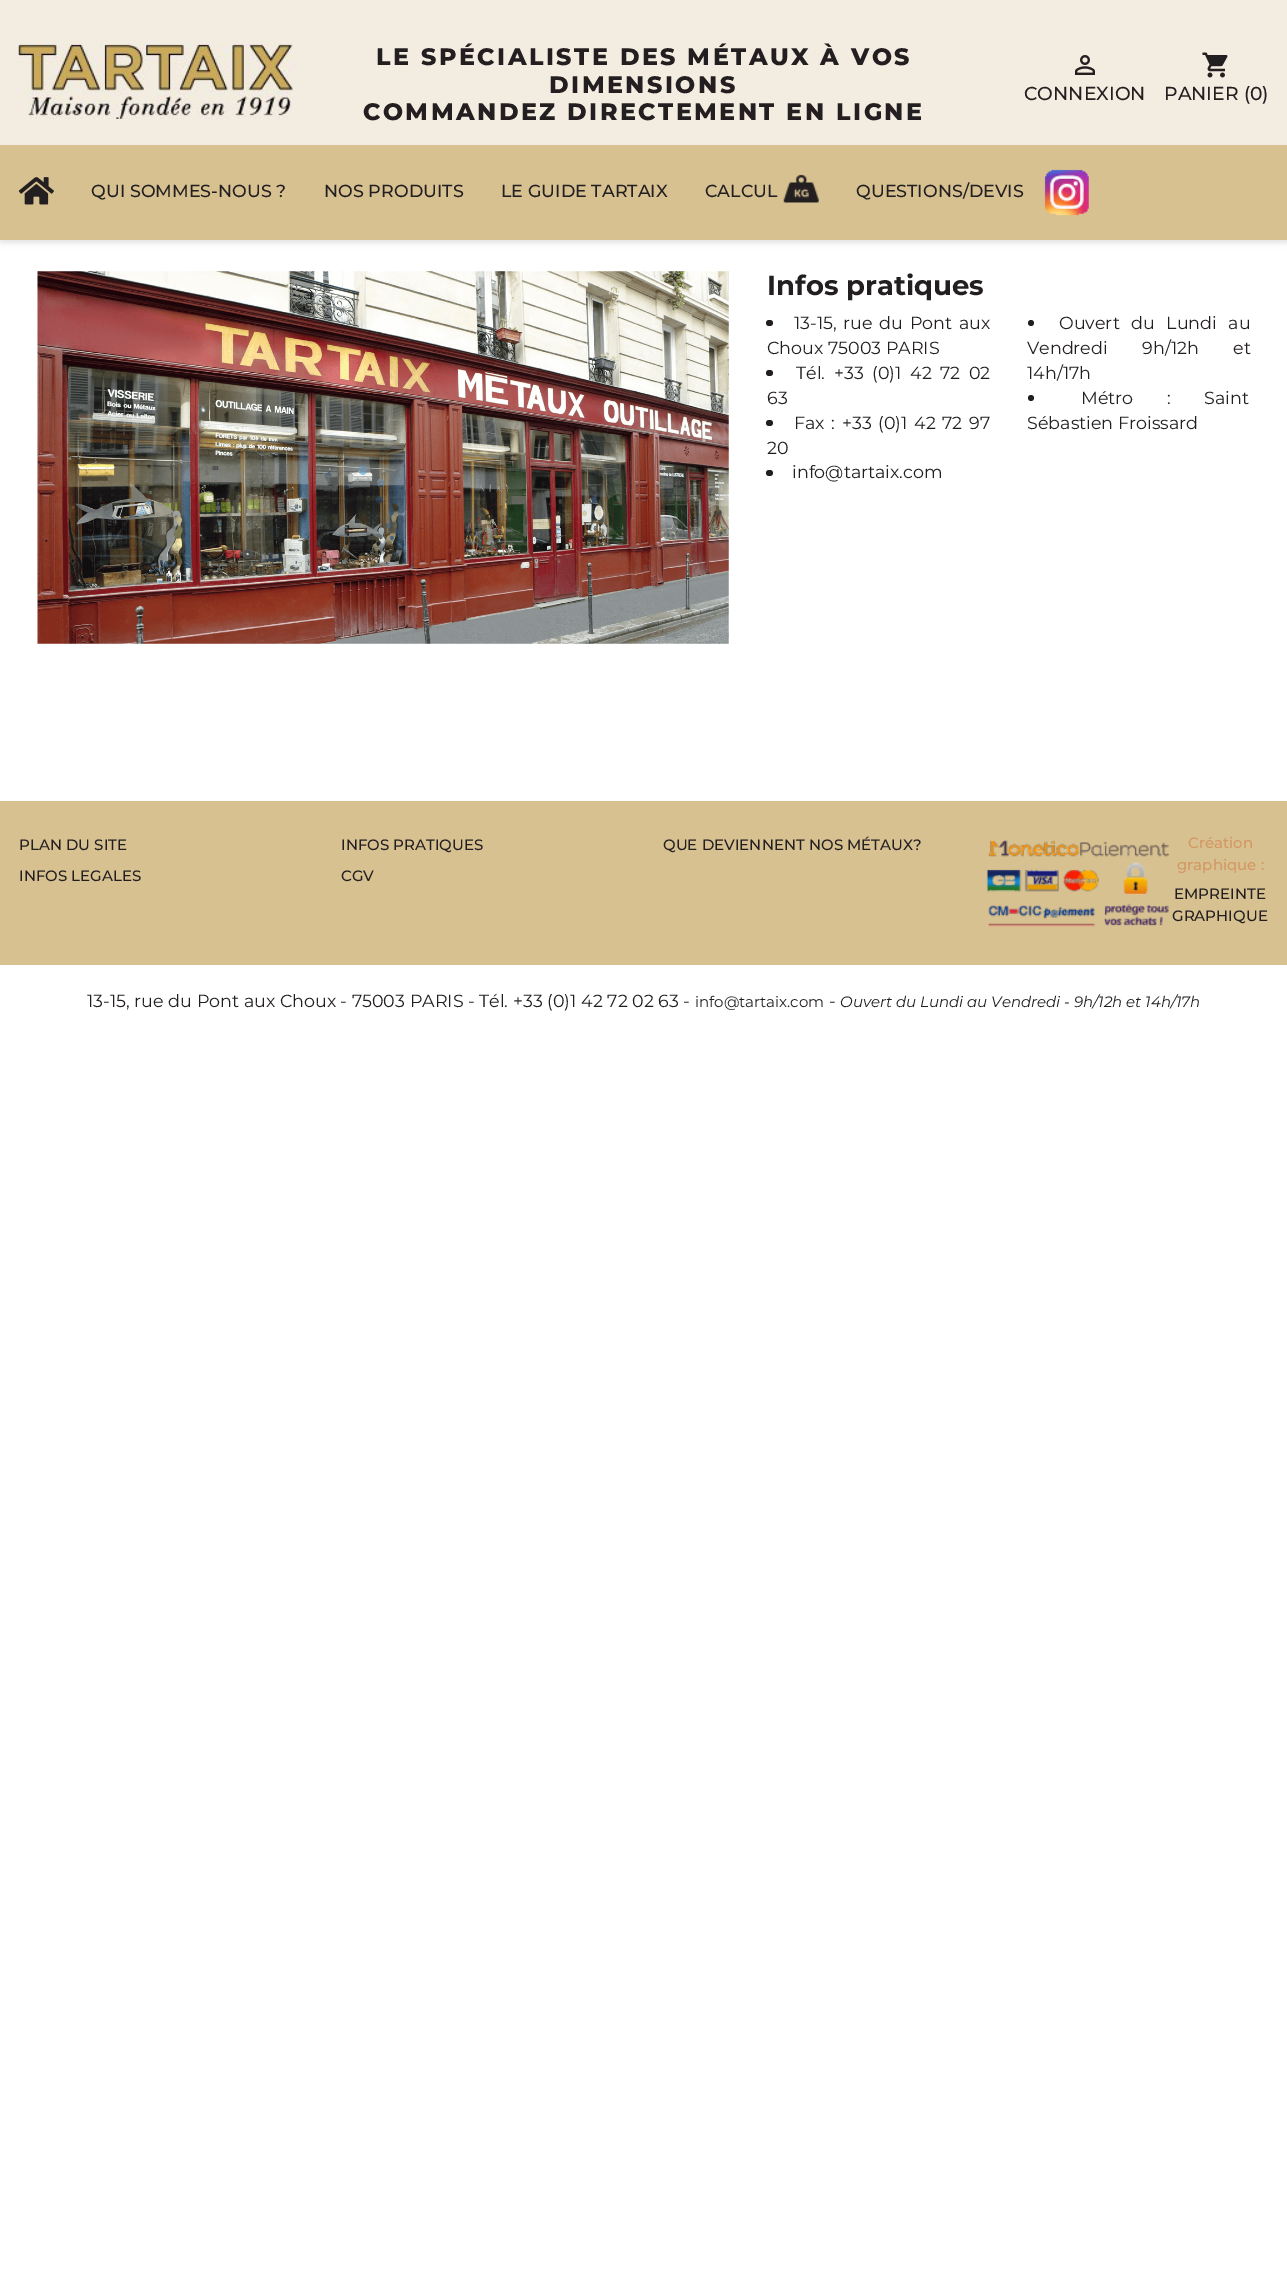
%!PS
<< /PageSize [1287 2282] /PageUsesTransparency true >> setpagedevice
/mt/moveto load def
/fl/fill load def
/co { dup -16 bitshift 255 div exch dup -8 bitshift 255 and 255 div exch 255 and 255 div setrgbcolor } def
/fn { [ exch dup neg 0 0 3 -1 roll 0 0 ] selectfont } def
/tx { co fn moveto show } def
/bx { co rectfill } def
/al { dup .setfillconstantalpha .setstrokeconstantalpha } def
/ci { newpath 0 360 arc closepath } def
/rr { 5 dict begin { /r /h /w /y /x } { exch def } forall
  x r add y moveto x w add y 2 copy h add r arct x w add y h add x 1 index r arct
  x y h add x y r arct x y 2 copy exch w add exch r arct closepath end } def
/sh { 12 dict begin { /a /b /q /h /w /y /x } { exch def } forall gsave /was 0 def
  9 -2 -9 { dup b mul 4 div /e exch def 1 sub .425 mul 2.718 exch exp 1 add a .99 .min exch div /now exch def
    1 1 now sub 1 was sub div sub al /was now def
    w h .min e 2 mul add 0 gt { x e sub y e sub w e 2 mul add h e 2 mul add
      q e add b .6 mul add w h .min 2 div e add .min 0 .max rr fill } if } for grestore end } def
/im { 5 dict begin { /h /w /y /x /name } { exch def } forall
  gsave x y translate w h scale
  w h 8 [w 0 0 h 0 0] name (r) file false 3 colorimage grestore end } def
0 .pushpdf14devicefilter
0 2282 translate 1 -1 scale
4 setmiterlimit
0 0 1287 2282 16#FFFFFF bx
16#000000 co
0 3 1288 240 0 3 .11 sh
0 0 1287 145 16#F3ECE0 bx
(media/1.raw) 18 43 275 76 im
(media/2.raw) 1075 55 20 20 im
(media/3.raw) 1202 52 26 26 im
0 145 1287 95 16#D7C191 bx
(media/4.raw) 18 177 36 28 im
(media/5.raw) 783 174 36 29 im
(media/6.raw) 1044 169 45 47 im
(media/7.raw) 37 271 692 373 im
16#231F20 co
766 320 7 6 3 rr fl
766 370 7 6 3 rr fl
766 420 7 6 3 rr fl
766 470 7 6 3 rr fl
1031 323 3 ci fl
1031 398 3 ci fl
0 801 1287 164 16#D7C191 bx
(media/8.raw) 986 840 183 87 im
/Montserrat-ExtraBold 23.75 fn
16#231F20 co
376 65 mt 2.5 0 (LE SPÉCIALISTE DES MÉTAUX À VOS) ashow
549 93 mt 2.5 0 (DIMENSIONS) ashow
363 120 mt 2.5 0 (COMMANDEZ DIRECTEMENT EN LIGNE) ashow
(CONNEXION) 1024 100 /Montserrat-Medium 18.75 16#231F20 tx
(PANIER \(0\)) 1164 100 /Montserrat-Medium 18.75 16#231F20 tx
(QUI SOMMES-NOUS ?) 91 197 /Montserrat-Medium 17.5 16#231F20 tx
(NOS PRODUITS) 324 197 /Montserrat-Medium 17.5 16#231F20 tx
(LE GUIDE TARTAIX) 501 197 /Montserrat-Medium 17.5 16#231F20 tx
(CALCUL) 705 197 /Montserrat-Medium 17.5 16#231F20 tx
(QUESTIONS/DEVIS) 856 197 /Montserrat-Medium 17.5 16#231F20 tx
(Infos pratiques) 767 295 /Montserrat-Bold 27.5 16#231F20 tx
/Montserrat-Regular 17.5 fn
794 329 mt 2 0 32 (13-15, rue du Pont aux) widthshow
(Choux 75003 PARIS) 767 354 /Montserrat-Regular 17.5 16#231F20 tx
796 379 mt 4 0 32 (Tél. +33 \(0\)1 42 72 02) widthshow
(63) 767 404 /Montserrat-Regular 17.5 16#231F20 tx
794 429 mt 2 0 32 (Fax : +33 \(0\)1 42 72 97) widthshow
(20) 767 454 /Montserrat-Regular 17.5 16#231F20 tx
(info@tartaix.com) 792 478 /Montserrat-Regular 17.5 16#231F20 tx
1059 329 mt 7 0 32 (Ouvert du Lundi au) widthshow
1027 354 mt 30 0 32 (Vendredi 9h/12h et) widthshow
(14h/17h) 1027 379 /Montserrat-Regular 17.5 16#231F20 tx
1081 404 mt 29 0 32 (Métro : Saint) widthshow
(Sébastien Froissard) 1027 429 /Montserrat-Regular 17.5 16#231F20 tx
(PLAN DU SITE) 19 850 /Montserrat-Medium 15 16#231F20 tx
(INFOS LEGALES) 19 881 /Montserrat-Medium 15 16#231F20 tx
(INFOS PRATIQUES) 341 850 /Montserrat-Medium 15 16#231F20 tx
(CGV) 341 881 /Montserrat-Medium 15 16#231F20 tx
(QUE DEVIENNENT NOS MÉTAUX?) 663 850 /Montserrat-Medium 15 16#231F20 tx
(Création) 1188 848 /Montserrat-Medium 15 16#D39761 tx
(graphique :) 1177 870 /Montserrat-Medium 15 16#D39761 tx
(EMPREINTE) 1174 899 /Montserrat-Medium 15 16#231F20 tx
(GRAPHIQUE) 1172 921 /Montserrat-Medium 15 16#231F20 tx
(13-15, rue du Pont aux Choux - 75003 PARIS - Tél. +33 \(0\)1 42 72 02 63 -) 87 1007 /Montserrat-Regular 17.5 16#231F20 tx
(info@tartaix.com) 695 1007 /Montserrat-Regular 15 16#231F20 tx
(-) 829 1007 /Montserrat-Regular 17.5 16#231F20 tx
(Ouvert du Lundi au Vendredi - 9h/12h et 14h/17h) 840 1007 /Montserrat-Italic 15 16#231F20 tx
.poppdf14devicefilter showpage
